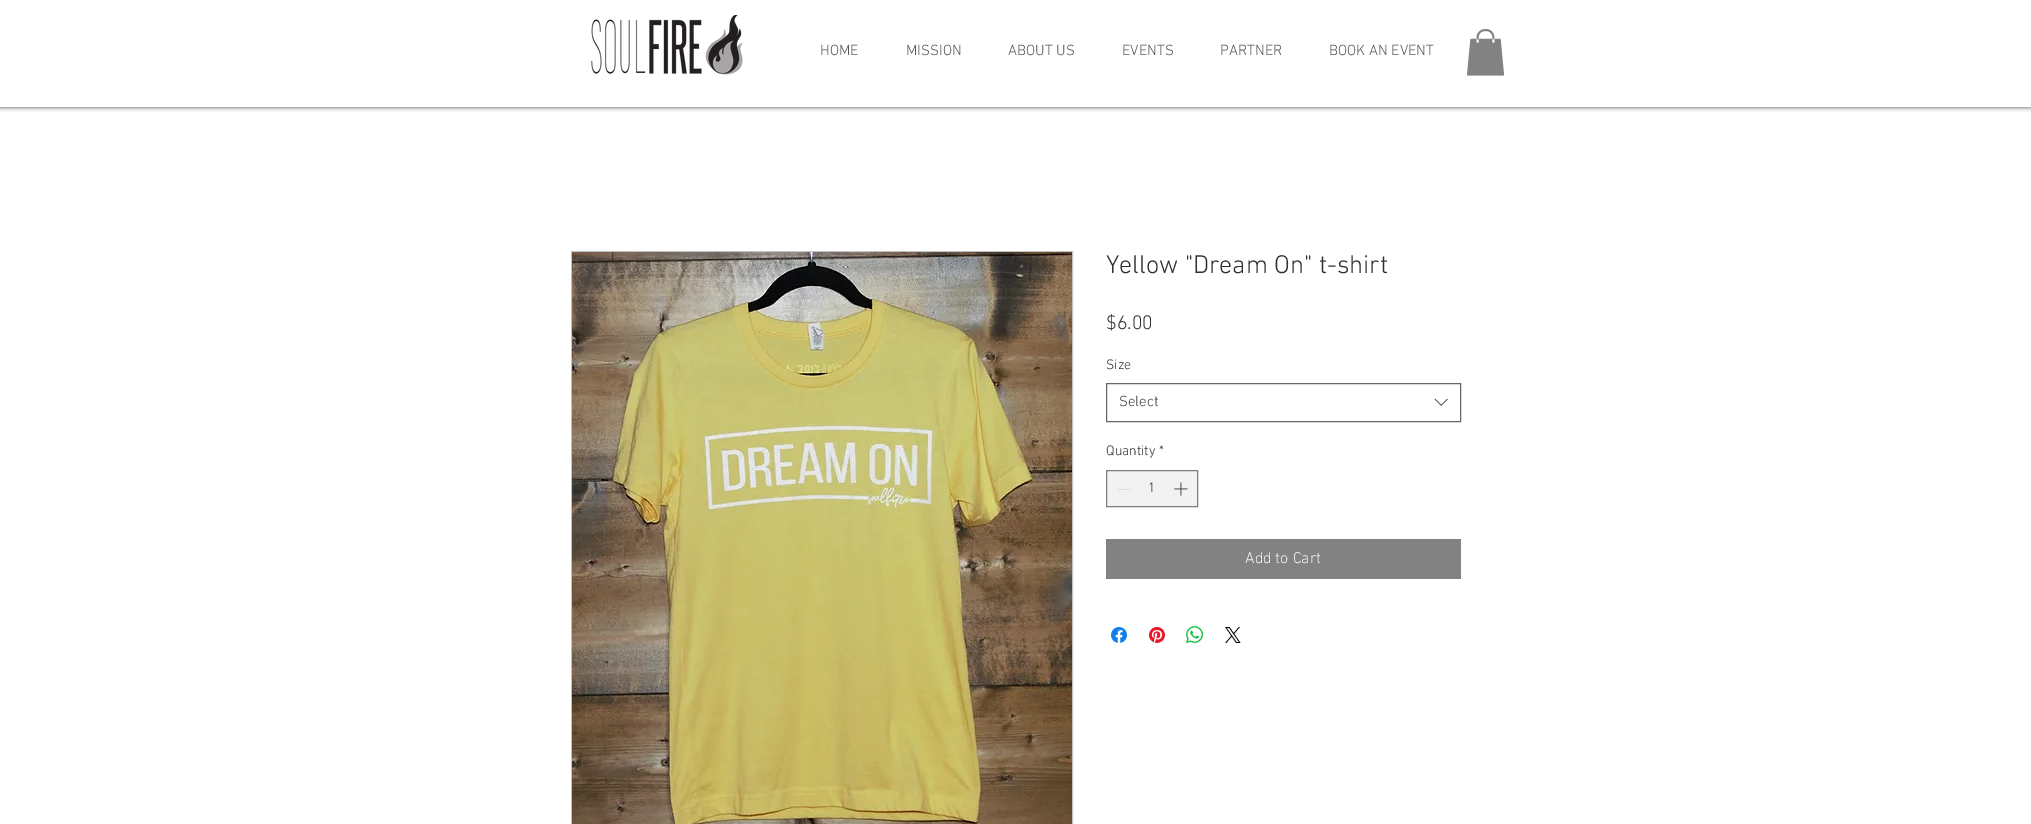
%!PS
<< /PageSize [2031 824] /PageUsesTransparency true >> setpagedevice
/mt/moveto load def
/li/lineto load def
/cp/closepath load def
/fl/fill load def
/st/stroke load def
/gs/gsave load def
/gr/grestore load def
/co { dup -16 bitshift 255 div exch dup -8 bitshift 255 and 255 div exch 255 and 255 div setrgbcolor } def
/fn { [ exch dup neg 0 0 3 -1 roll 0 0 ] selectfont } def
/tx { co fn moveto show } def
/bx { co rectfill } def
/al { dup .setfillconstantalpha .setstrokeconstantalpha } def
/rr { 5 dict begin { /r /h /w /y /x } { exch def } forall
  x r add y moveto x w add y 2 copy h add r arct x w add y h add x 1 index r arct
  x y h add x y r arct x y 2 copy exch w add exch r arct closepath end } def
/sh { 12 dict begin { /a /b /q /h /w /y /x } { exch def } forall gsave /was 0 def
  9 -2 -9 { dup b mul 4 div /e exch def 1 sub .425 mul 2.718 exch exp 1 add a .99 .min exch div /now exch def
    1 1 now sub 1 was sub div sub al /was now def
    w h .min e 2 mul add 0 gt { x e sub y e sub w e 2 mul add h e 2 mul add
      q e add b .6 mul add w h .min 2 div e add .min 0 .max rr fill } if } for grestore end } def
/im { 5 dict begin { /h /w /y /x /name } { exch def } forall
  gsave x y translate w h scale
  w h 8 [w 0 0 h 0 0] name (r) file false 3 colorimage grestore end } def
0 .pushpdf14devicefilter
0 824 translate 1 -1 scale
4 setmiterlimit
0 0 2031 824 16#FFFFFF bx
gs
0 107 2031 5 rectclip
16#000000 co
0 0 2031 107 0 2.5 .7 sh
gr
(media/1.raw) 591 15 152 60 im
(media/2.raw) 1467 29 38 47 im
16#C2C2C2 co
571.5 251.5 501 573 rectstroke
(media/3.raw) 572 252 500 572 im
16#666666 co
1106.5 383.5 354 38 rectstroke
(media/4.raw) 1434 398 14 8 im
16#F2F2F2 co
1106.5 470.5 mt 1197.5 470.5 li 1197.5 506.5 li 1106.5 506.5 li cp gs fl gr
16#7E7E7E co
st
1118 489 13 1 16#DDDDDD bx
(media/5.raw) 1174 482 14 14 im
1106 539 355 40 16#828282 bx
(media/6.raw) 1111 627 16 16 im
(media/7.raw) 1149 627 16 16 im
(media/8.raw) 1186 626 17 17 im
(media/9.raw) 1225 627 16 16 im
(HOME) 820 55 /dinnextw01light-Light 15 16#565656 tx
(MISSION) 906 55 /dinnextw01light-Light 15 16#565656 tx
(ABOUT US) 1008 55 /dinnextw01light-Light 15 16#565656 tx
(EVENTS) 1122 55 /dinnextw01light-Light 15 16#565656 tx
(PARTNER) 1220 55 /dinnextw01light-Light 15 16#565656 tx
(BOOK AN EVENT) 1329 55 /dinnextw01light-Light 15 16#565656 tx
(Yellow "Dream On" t-shirt) 1106 273 /dinnextw01light-Light 26 16#303030 tx
($6.00) 1106 329 /dinnextw01light-Light 20 16#303030 tx
(Size) 1106 369 /dinnextw01light-Light 14 16#303030 tx
(Select) 1119 406 /dinnextw01light-Light 15 16#444444 tx
(Quantity) 1106 455 /dinnextw01light-Light 14 16#303030 tx
(*) 1159 455 /dinnextw01light-Light 14 16#303030 tx
(1) 1148 492 /dinnextw01light-Light 14 16#303030 tx
(Add to Cart) 1245 563 /dinnextw01light-Light 16 16#F2F2F2 tx
.poppdf14devicefilter showpage
